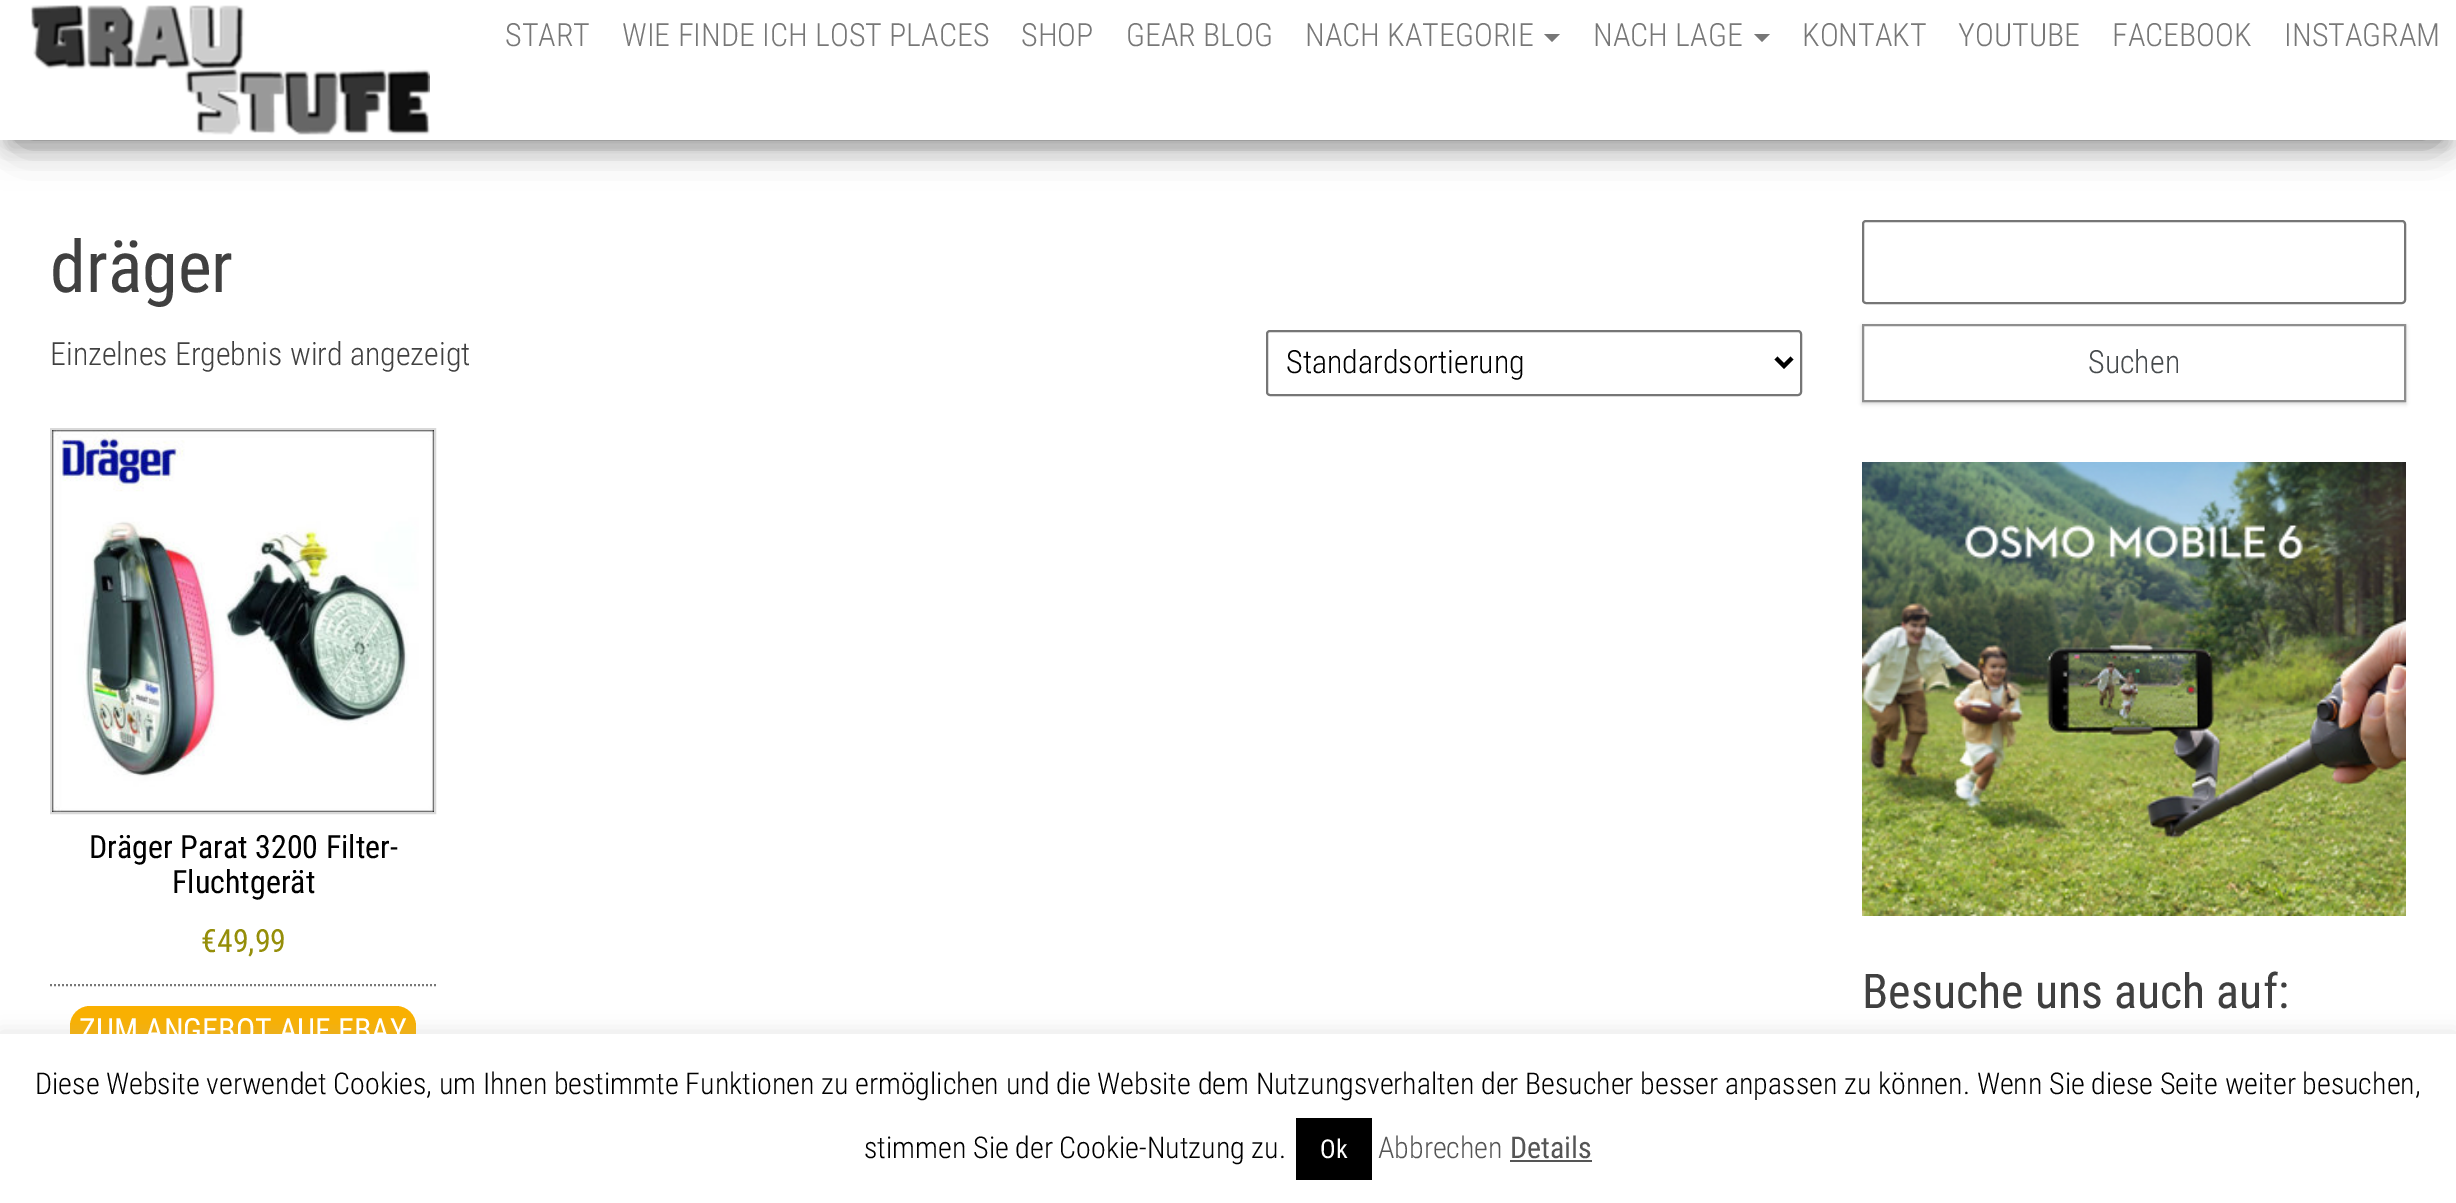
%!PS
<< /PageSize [2456 1203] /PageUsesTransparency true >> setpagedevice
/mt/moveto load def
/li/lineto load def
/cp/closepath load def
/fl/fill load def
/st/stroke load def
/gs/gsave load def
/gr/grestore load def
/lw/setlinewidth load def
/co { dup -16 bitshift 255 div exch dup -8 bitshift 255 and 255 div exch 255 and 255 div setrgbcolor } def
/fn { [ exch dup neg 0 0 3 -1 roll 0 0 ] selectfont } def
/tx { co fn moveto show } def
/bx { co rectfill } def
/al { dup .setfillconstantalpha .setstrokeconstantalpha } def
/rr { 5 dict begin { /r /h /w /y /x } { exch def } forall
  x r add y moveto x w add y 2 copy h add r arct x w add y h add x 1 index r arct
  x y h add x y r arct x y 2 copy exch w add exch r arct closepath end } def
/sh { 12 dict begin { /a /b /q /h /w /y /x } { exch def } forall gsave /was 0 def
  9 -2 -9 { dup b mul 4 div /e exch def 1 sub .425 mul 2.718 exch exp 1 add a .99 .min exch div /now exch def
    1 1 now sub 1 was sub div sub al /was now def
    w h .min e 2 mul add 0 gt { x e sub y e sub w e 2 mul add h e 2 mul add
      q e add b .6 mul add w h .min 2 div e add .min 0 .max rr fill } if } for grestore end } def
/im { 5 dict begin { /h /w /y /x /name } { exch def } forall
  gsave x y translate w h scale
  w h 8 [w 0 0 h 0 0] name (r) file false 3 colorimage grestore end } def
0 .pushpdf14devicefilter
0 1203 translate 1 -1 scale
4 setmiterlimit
0 0 2456 1203 16#FFFFFF bx
16#000000 co
10 26 2436 120 0 10 .2 sh
0 6 2456 140 0 20 .12 sh
24 44 2408 92 0 20 .42 sh
0 0 2456 140 16#FFFFFF bx
(media/1.raw) 30 4 400 131 im
16#777777 co
1544 34 mt 1560 34 li 1552 42 li cp fl
1754 34 mt 1770 34 li 1762 42 li cp fl
16#767676 co
2 lw
1267 331 534 64 3 rr st
16#000000 co
4 lw
1776 358 mt 1784 366 li 1792 358 li st
16#777777 co
2 lw
[2 2] 0 setdash
50 985 mt 436 985 li st
16#D9D9D9 co
[] 0 setdash
51 429 384 384 rectstroke
(media/2.raw) 52 430 382 382 im
16#FAB000 co
70 1006 346 52 20 rr fl
16#767676 co
1863 221 542 82 3 rr st
gs
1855 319 mt 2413 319 li 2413 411 li 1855 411 li cp 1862 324 mt 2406 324 li 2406 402 li 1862 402 li cp eoclip newpath
16#000000 co
1862 326 544 78 0 2 .15 sh
gr
16#8E8E8E co
1863 325 542 76 rectstroke
(media/3.raw) 1862 462 544 454 im
16#ACABAB co
0 1032 2456 170 0 10 .3 sh
0 1034 2456 169 16#FFFFFF bx
1296 1118 76 62 16#000000 bx
1510 1160 82 2 16#555555 bx
(START) 505 46 /RobotoCondensed-Light 32 16#777777 tx
(WIE FINDE ICH LOST PLACES) 622 46 /RobotoCondensed-Light 32 16#777777 tx
(SHOP) 1021 46 /RobotoCondensed-Light 32 16#777777 tx
(GEAR BLOG) 1126 46 /RobotoCondensed-Light 32 16#777777 tx
(NACH KATEGORIE) 1305 46 /RobotoCondensed-Light 32 16#777777 tx
(NACH LAGE) 1593 46 /RobotoCondensed-Light 32 16#777777 tx
(KONTAKT) 1802 46 /RobotoCondensed-Light 32 16#777777 tx
(YOUTUBE) 1958 46 /RobotoCondensed-Light 32 16#777777 tx
(FACEBOOK) 2112 46 /RobotoCondensed-Light 32 16#777777 tx
(INSTAGRAM) 2284 46 /RobotoCondensed-Light 32 16#777777 tx
(dräger) 50 292 /RobotoCondensed-Regular 72 16#404040 tx
(Einzelnes Ergebnis wird angezeigt) 50 365 /RobotoCondensed-Light 32 16#404040 tx
(Standardsortierung) 1286 373 /RobotoCondensed-Light 32 16#000000 tx
(Dräger Parat 3200 Filter-) 89 858 /RobotoCondensed-Regular 32 16#000000 tx
(Fluchtgerät) 172 893 /RobotoCondensed-Regular 32 16#000000 tx
(€49,99) 201 952 /RobotoCondensed-Regular 32 16#958E09 tx
(ZUM ANGEBOT AUF EBAY) 79 1041 /RobotoCondensed-Regular 32 16#FFFFFF tx
(Suchen) 2088 373 /RobotoCondensed-Light 32 16#464A4C tx
(Besuche uns auch auf:) 1862 1008 /RobotoCondensed-Regular 48 16#404040 tx
(Diese Website verwendet Cookies, um Ihnen bestimmte Funktionen zu ermöglichen und die Website dem Nutzungsverhalten der Besucher besser anpassen zu können. Wenn Sie diese Seite weiter besuchen,) 35 1094 /RobotoCondensed-Light 30 16#000000 tx
(stimmen Sie der Cookie-Nutzung zu.) 864 1158 /RobotoCondensed-Light 30 16#000000 tx
(Ok) 1320 1158 /RobotoCondensed-Regular 26 16#FFFFFF tx
(Abbrechen) 1378 1158 /RobotoCondensed-Light 30 16#555555 tx
(Details) 1510 1158 /RobotoCondensed-Regular 30 16#555555 tx
.poppdf14devicefilter showpage
